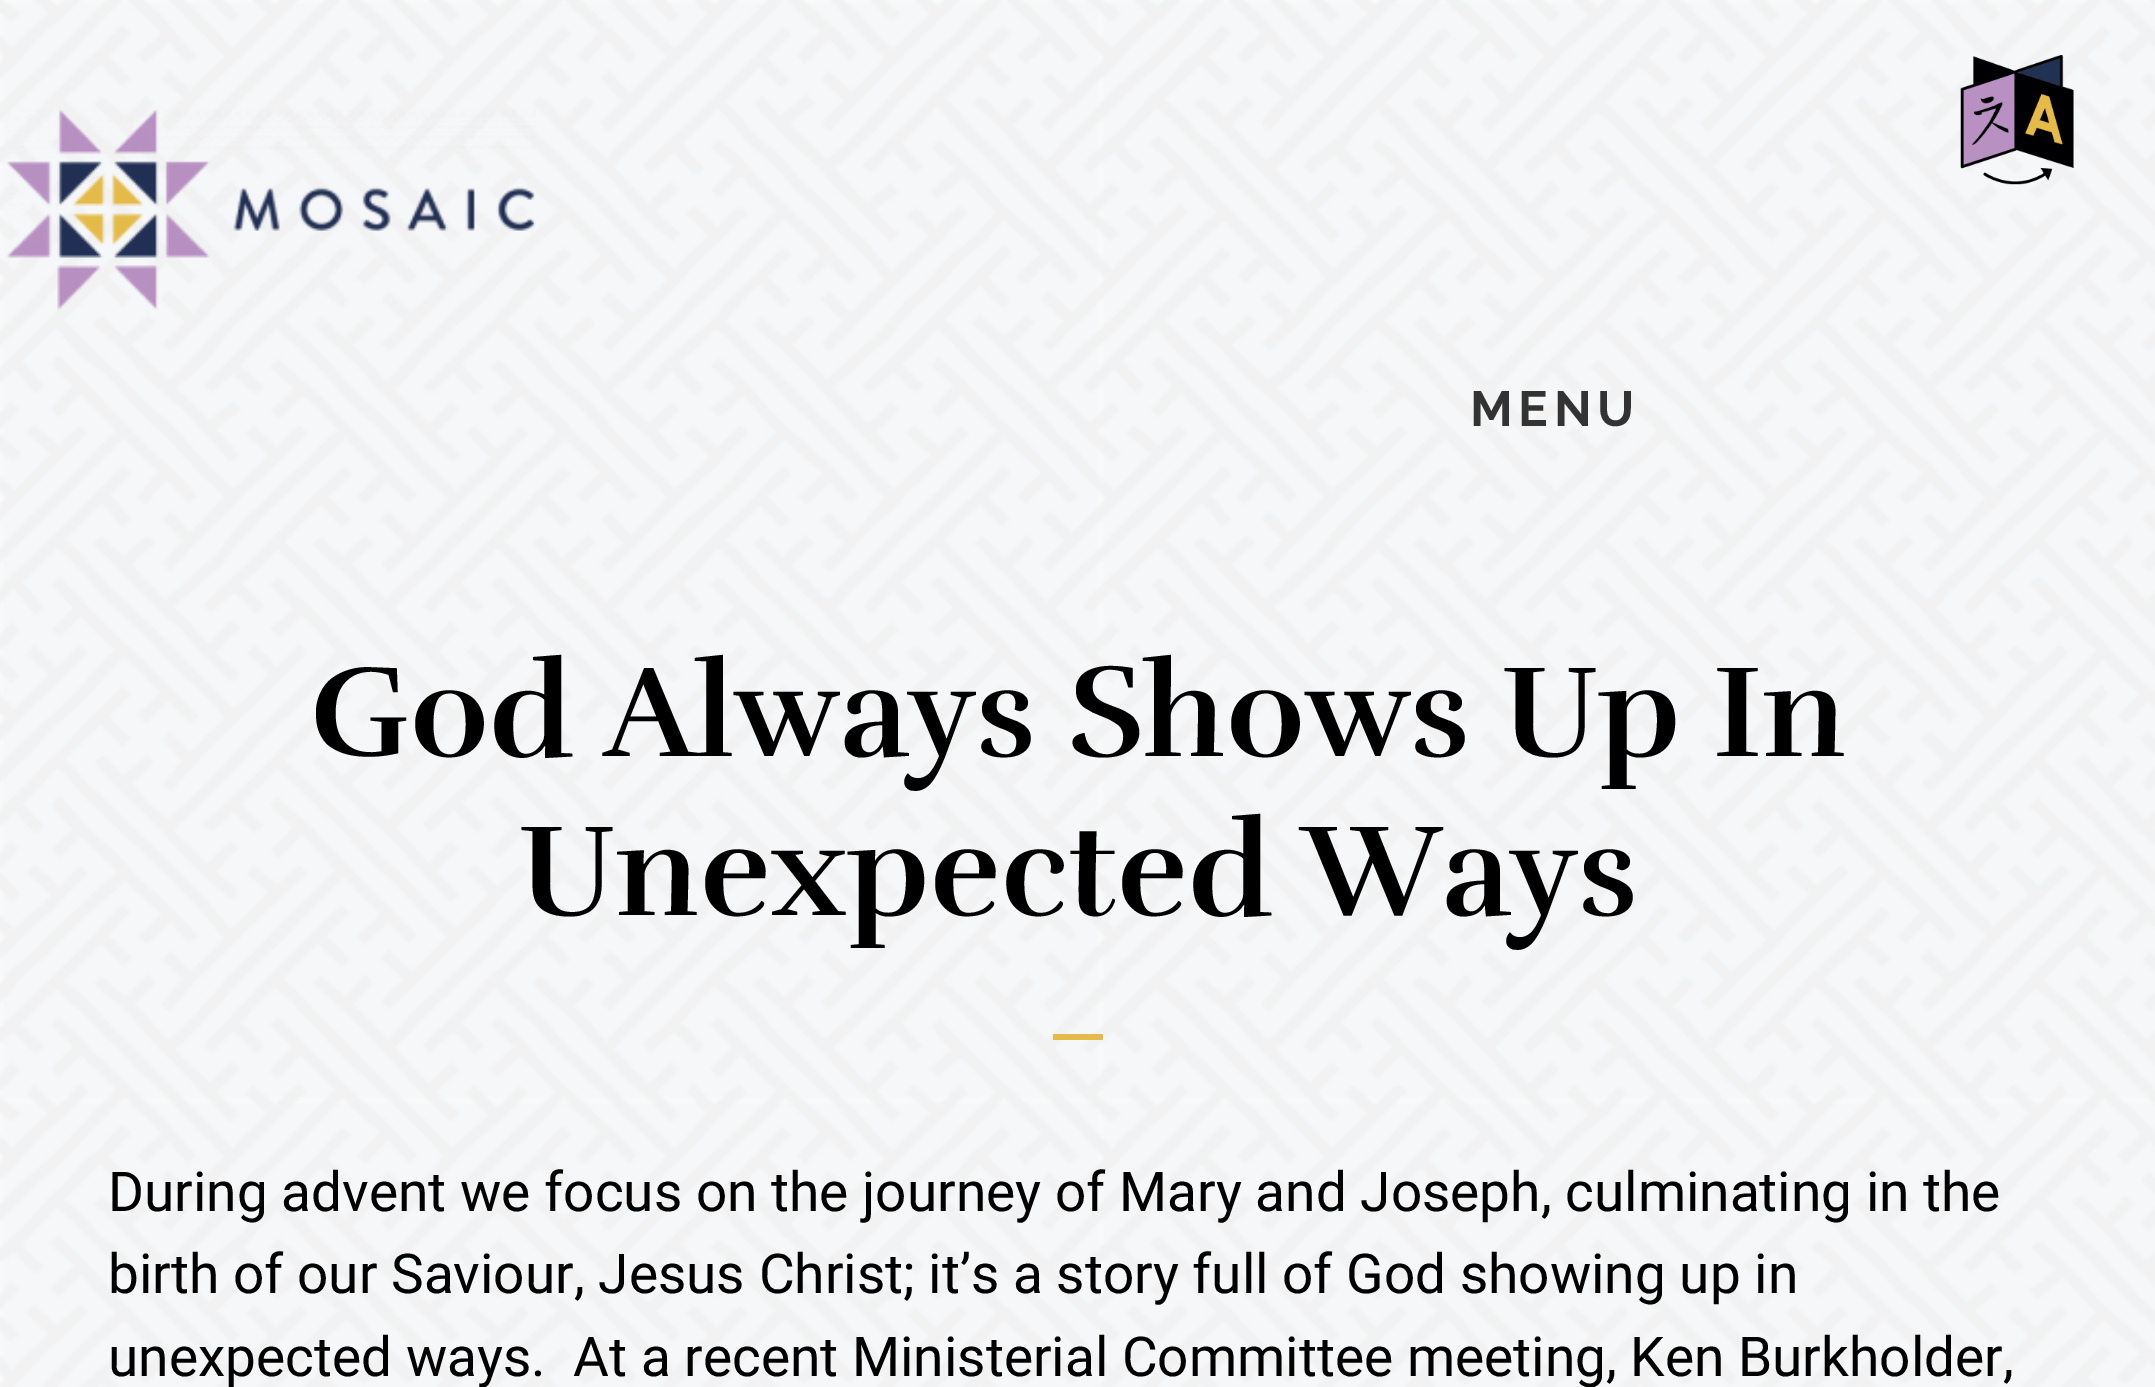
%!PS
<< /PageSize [2155 1387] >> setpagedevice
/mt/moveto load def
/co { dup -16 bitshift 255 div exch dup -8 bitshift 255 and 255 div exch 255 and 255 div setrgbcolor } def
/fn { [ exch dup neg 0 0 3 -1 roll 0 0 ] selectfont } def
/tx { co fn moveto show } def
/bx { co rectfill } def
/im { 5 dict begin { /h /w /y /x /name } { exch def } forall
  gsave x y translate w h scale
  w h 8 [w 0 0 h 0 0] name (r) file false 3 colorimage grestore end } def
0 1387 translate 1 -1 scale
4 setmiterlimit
0 0 2155 1387 16#FFFFFF bx
(media/1.raw) 0 0 2155 1387 im
(media/2.raw) 1960 55 114 130 im
(media/3.raw) 6 109 530 201 im
1053 1034 50 6 16#E5BA48 bx
/Raleway-Bold 49.5 fn
16#333333 co
1470 426 mt 5.5 0 (MENU) ashow
(God Always Shows Up In) 310 756 /Rufina-Bold 132 16#000000 tx
(Unexpected Ways) 519 915 /Rufina-Bold 132 16#000000 tx
(During advent we focus on the journey of Mary and Joseph, culminating in the) 108 1211 /Roboto-Regular 55 16#000000 tx
(birth of our Saviour, Jesus Christ; it’s a story full of God showing up in) 108 1293 /Roboto-Regular 55 16#000000 tx
(unexpected ways.  At a recent Ministerial Committee meeting, Ken Burkholder,) 108 1376 /Roboto-Regular 55 16#000000 tx
showpage
